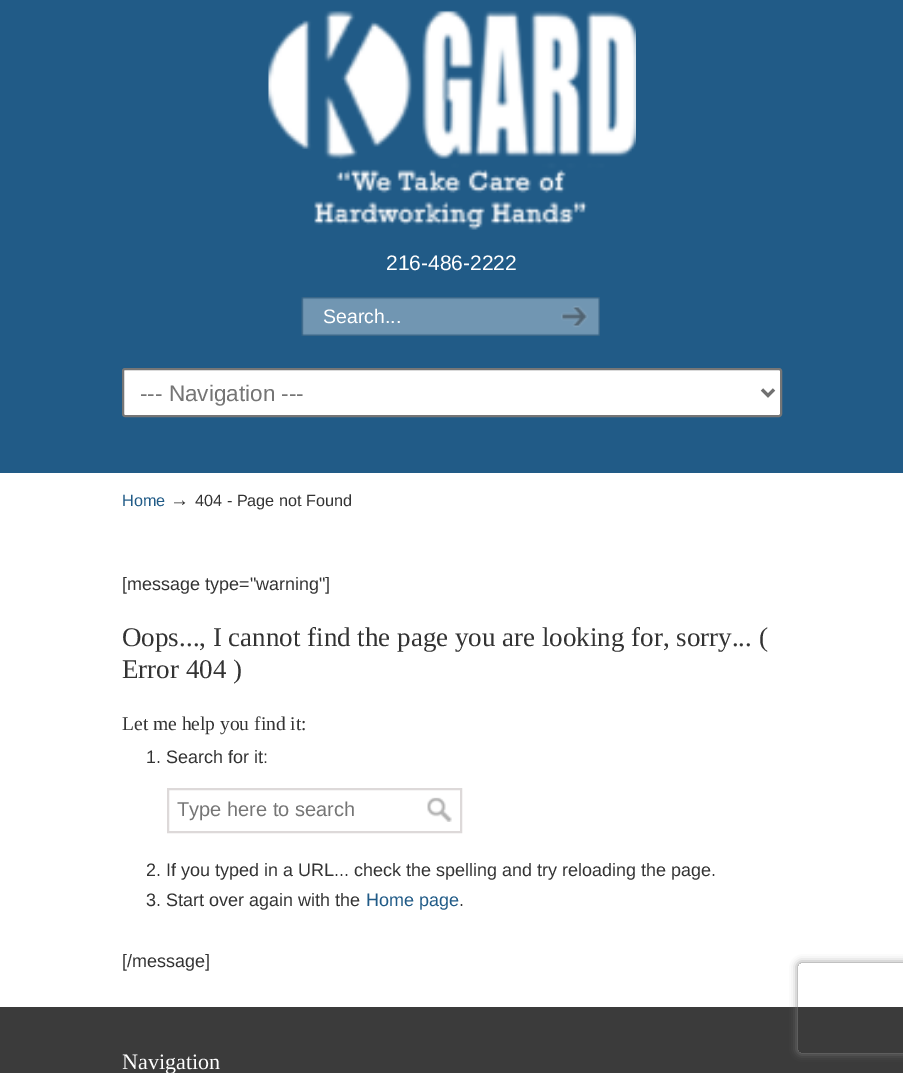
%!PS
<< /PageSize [903 1073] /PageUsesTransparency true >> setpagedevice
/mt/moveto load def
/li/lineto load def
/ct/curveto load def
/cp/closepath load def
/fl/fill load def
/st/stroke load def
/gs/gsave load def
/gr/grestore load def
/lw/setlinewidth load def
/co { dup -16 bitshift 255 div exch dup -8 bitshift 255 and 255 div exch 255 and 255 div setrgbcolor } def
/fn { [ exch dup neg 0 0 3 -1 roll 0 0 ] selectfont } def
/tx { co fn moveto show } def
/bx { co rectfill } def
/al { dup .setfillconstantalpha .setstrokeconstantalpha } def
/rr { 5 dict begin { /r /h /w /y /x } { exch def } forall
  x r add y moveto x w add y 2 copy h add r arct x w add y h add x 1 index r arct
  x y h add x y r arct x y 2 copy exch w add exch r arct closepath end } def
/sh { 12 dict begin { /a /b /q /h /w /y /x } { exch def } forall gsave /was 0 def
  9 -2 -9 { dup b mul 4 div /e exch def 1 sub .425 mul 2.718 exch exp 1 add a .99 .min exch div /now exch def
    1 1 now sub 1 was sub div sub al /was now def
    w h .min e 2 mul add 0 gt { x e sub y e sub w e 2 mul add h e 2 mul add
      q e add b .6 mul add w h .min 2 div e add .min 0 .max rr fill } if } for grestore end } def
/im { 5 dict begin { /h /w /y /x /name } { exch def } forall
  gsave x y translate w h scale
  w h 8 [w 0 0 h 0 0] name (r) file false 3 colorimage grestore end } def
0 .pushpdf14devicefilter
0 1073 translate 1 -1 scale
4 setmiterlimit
0 0 903 1073 16#FFFFFF bx
0 0 903 473 16#215B87 bx
(media/1.raw) 268 10 368 220 im
(media/2.raw) 301 297 239 39 im
(media/3.raw) 540 297 60 39 im
16#FFFFFF co
123 369 658 47 2 rr gs fl gr
16#767676 co
2 lw
st
16#717171 co
3 lw
762 389.5 mt 768 395.5 li 774 389.5 li st
16#DDD9D9 co
2 lw
168 789 293 43 rectstroke
(media/4.raw) 427 797 25 25 im
0 1007 903 66 16#3B3B3B bx
gs
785 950 mt 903 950 li 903 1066 li 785 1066 li cp 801 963 mt 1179 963 li 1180.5 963 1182 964.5 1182 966 ct 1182 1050 li 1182 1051.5 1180.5 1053 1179 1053 ct 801 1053 li 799.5 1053 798 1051.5 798 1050 ct 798 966 li 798 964.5 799.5 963 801 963 ct cp eoclip newpath
16#808080 co
798 963 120 90 3 4 1 sh
gr
(216-486-2222) 386 270 /LiberationSans-Regular 21 16#FFFFFF tx
(Search...) 323 323 /LiberationSans-Regular 19.5 16#FFFFFF tx
(--- Navigation ---) 140 401 /LiberationSans-Regular 22.5 16#757575 tx
(Home) 122 506 /LiberationSans-Regular 16.25 16#215B87 tx
(→) 170 506 /LiberationSans-Regular 19 16#333333 tx
(404 - Page not Found) 195 506 /LiberationSans-Regular 16.25 16#333333 tx
([message type="warning"]) 122 590 /LiberationSans-Regular 18 16#333333 tx
(Oops..., I cannot find the page you are looking for, sorry... \() 122 646 /LiberationSerif-Regular 27 16#333333 tx
(Error 404 \)) 122 678 /LiberationSerif-Regular 27 16#333333 tx
(Let me help you find it:) 122 730 /LiberationSerif-Regular 19.5 16#333333 tx
(1. Search for it:) 146 763 /LiberationSans-Regular 18 16#333333 tx
(Type here to search) 177 816 /LiberationSans-Regular 20 16#757575 tx
(2. If you typed in a URL... check the spelling and try reloading the page.) 146 876 /LiberationSans-Regular 18 16#333333 tx
(3. Start over again with the) 146 906 /LiberationSans-Regular 18 16#333333 tx
(Home page) 366 906 /LiberationSans-Regular 18 16#215B87 tx
(.) 459 906 /LiberationSans-Regular 18 16#333333 tx
([/message]) 122 967 /LiberationSans-Regular 18 16#333333 tx
(Navigation) 122 1069 /LiberationSerif-Regular 22 16#FFFFFF tx
.poppdf14devicefilter showpage
